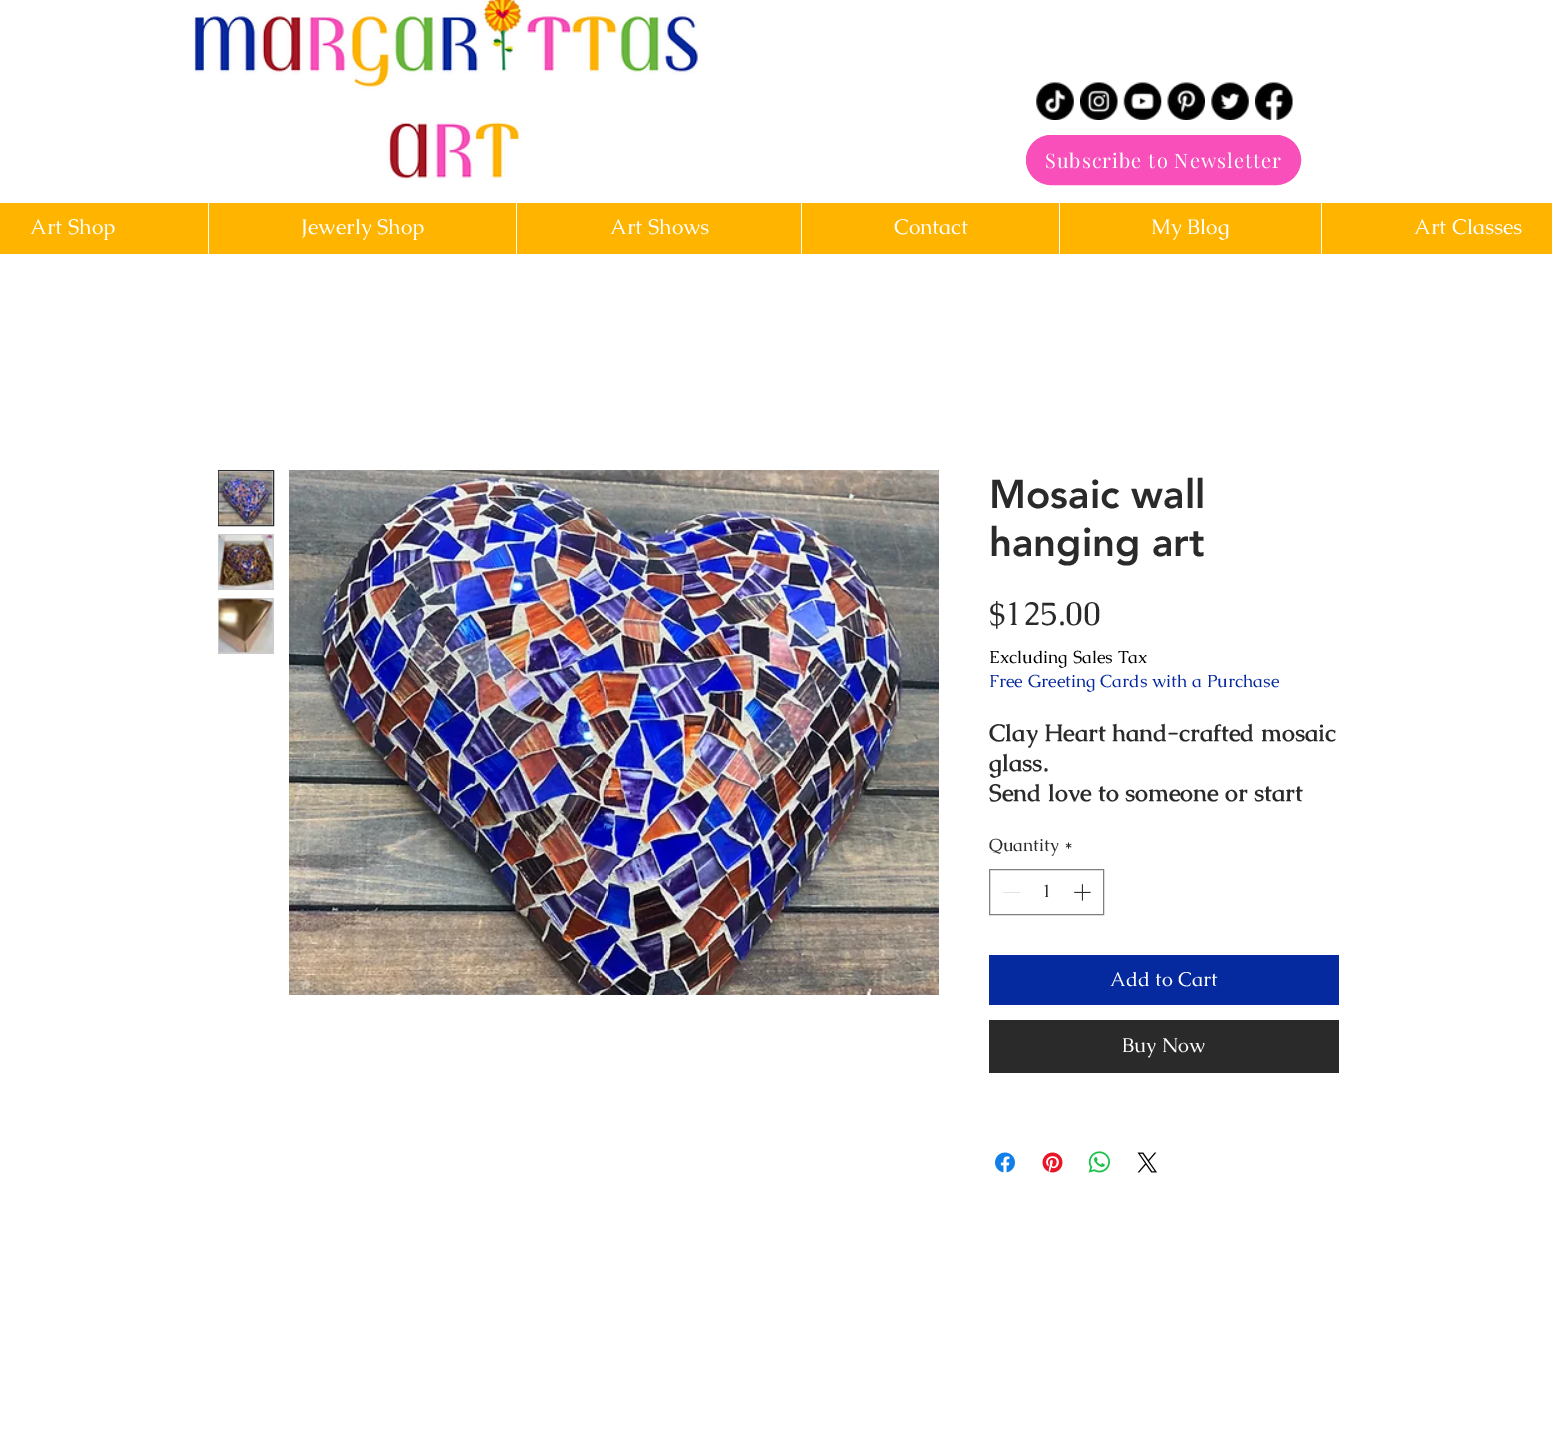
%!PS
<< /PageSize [1552 1430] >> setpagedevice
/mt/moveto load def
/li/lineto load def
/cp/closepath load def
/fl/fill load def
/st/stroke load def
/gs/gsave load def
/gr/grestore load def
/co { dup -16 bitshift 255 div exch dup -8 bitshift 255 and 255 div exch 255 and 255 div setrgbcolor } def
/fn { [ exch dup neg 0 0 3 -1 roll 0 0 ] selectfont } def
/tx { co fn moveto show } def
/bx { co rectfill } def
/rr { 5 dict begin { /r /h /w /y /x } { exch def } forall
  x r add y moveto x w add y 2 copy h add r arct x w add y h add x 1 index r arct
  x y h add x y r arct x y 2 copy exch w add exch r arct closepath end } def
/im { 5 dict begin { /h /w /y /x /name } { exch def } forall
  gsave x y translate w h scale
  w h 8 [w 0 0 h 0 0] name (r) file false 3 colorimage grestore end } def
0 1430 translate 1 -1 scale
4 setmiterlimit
0 0 1552 1430 16#FFFFFF bx
(media/1.raw) 194 0 505 179 im
(media/2.raw) 1036 82 38 38 im
(media/3.raw) 1080 82 38 38 im
(media/4.raw) 1123 82 39 38 im
(media/5.raw) 1167 82 38 38 im
(media/6.raw) 1211 82 38 38 im
(media/7.raw) 1255 82 38 38 im
16#F84FBA co
1026.5 135.5 274 49 24.5 rr gs fl gr
st
0 203 1552 51 16#FFB400 bx
208 203 1 51 16#FFFFFF bx
516 203 1 51 16#FFFFFF bx
801 203 1 51 16#FFFFFF bx
1059 203 1 51 16#FFFFFF bx
1321 203 1 51 16#FFFFFF bx
16#CCCCCC co
218.5 470.5 mt 273.5 470.5 li 273.5 525.5 li 218.5 525.5 li cp gs fl gr
16#2A2A2A co
st
(media/8.raw) 218 471 55 55 im
218 534 56 56 16#CCCCCC bx
(media/9.raw) 218 534 55 55 im
218 598 56 56 16#CCCCCC bx
(media/10.raw) 218 598 55 55 im
(media/11.raw) 289 470 650 525 im
16#7F7F7F co
989.5 869.5 114 45 rectstroke
1003 892 17 1 16#E3E3E3 bx
(media/12.raw) 1074 884 17 17 im
989 955 350 50 16#05299E bx
989 1020 350 53 16#2A2A2A bx
(media/13.raw) 995 1152 20 21 im
(media/14.raw) 1042 1152 21 21 im
(media/15.raw) 1088 1151 22 22 im
(media/16.raw) 1137 1152 20 21 im
/PlayfairDisplay-Regular 20 fn
16#FFFFFF co
1045 168 mt 1 0 (Subscribe to Newsletter) ashow
(Art Shop) 30 234 /Caudex-Regular 21.25 16#FFFFFF tx
(Jewerly Shop) 301 234 /Caudex-Regular 21.25 16#FFFFFF tx
(Art Shows) 610 234 /Caudex-Regular 21.25 16#FFFFFF tx
(Contact) 894 234 /Caudex-Regular 21.25 16#FFFFFF tx
(My Blog) 1151 234 /Caudex-Regular 21.25 16#FFFFFF tx
(Art Classes) 1414 234 /Caudex-Regular 21.25 16#FFFFFF tx
(Mosaic wall) 989 508 /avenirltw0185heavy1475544-Black 40 16#2A2A2A tx
(hanging art) 989 556 /avenirltw0185heavy1475544-Black 40 16#2A2A2A tx
($125.00) 989 625 /Caudex-Regular 32.5 16#2A2A2A tx
(Excluding Sales Tax) 989 663 /Caudex-Regular 17.5 16#000000 tx
(Free Greeting Cards with a Purchase) 989 687 /Caudex-Regular 17.5 16#05299E tx
(Clay Heart hand-crafted mosaic) 989 741 /Caudex-Bold 23.75 16#2A2A2A tx
(glass.) 989 771 /Caudex-Bold 23.75 16#2A2A2A tx
(Send love to someone or start) 989 801 /Caudex-Bold 23.75 16#2A2A2A tx
(Quantity) 989 851 /Caudex-Regular 17.5 16#2A2A2A tx
(*) 1064 851 /Caudex-Regular 17.5 16#2A2A2A tx
(1) 1042 897 /Caudex-Regular 17.5 16#2A2A2A tx
(Add to Cart) 1110 986 /Caudex-Regular 20 16#FFFFFF tx
(Buy Now) 1122 1052 /Caudex-Regular 20 16#FFFFFF tx
showpage
